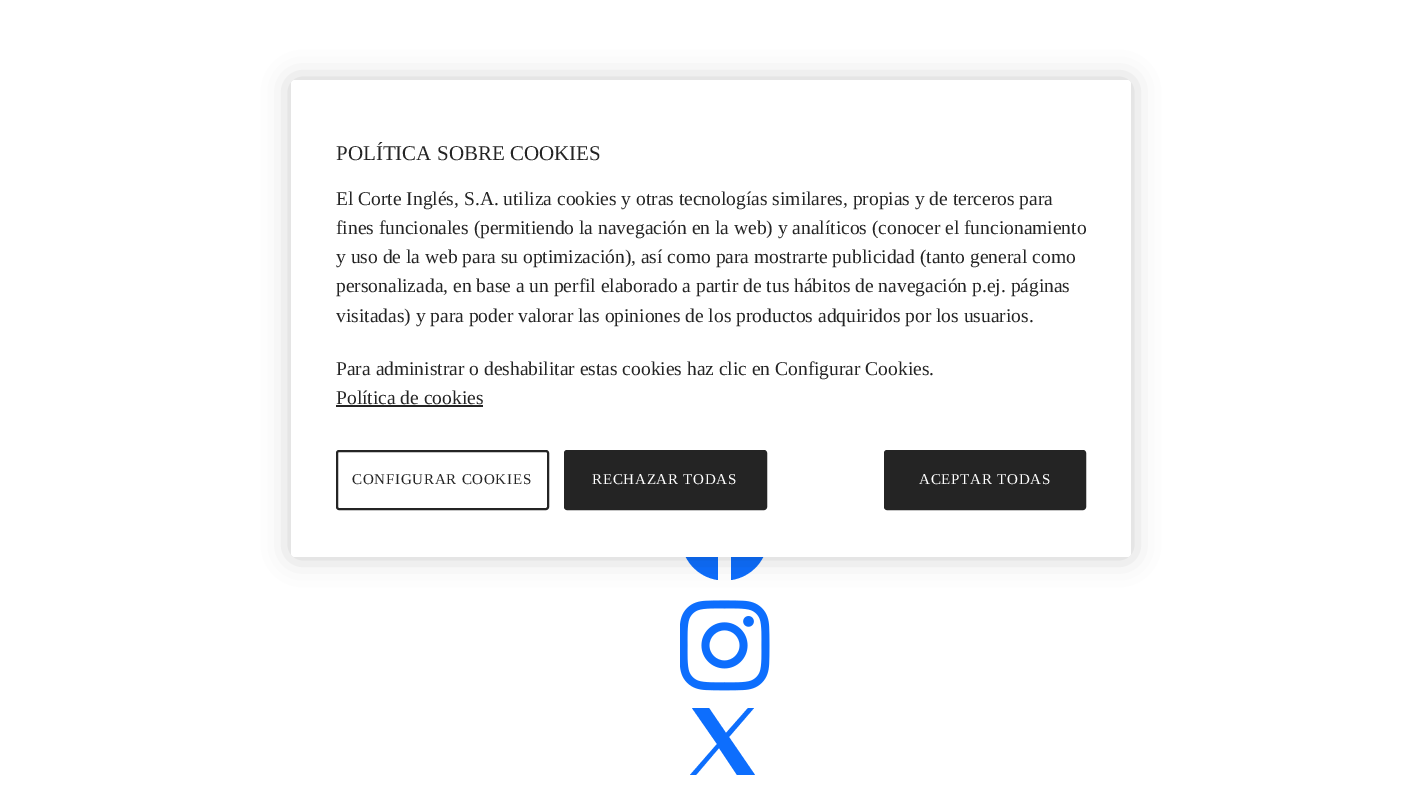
%!PS
<< /PageSize [1401 792] /PageUsesTransparency true >> setpagedevice
/mt/moveto load def
/li/lineto load def
/ct/curveto load def
/cp/closepath load def
/fl/fill load def
/st/stroke load def
/gs/gsave load def
/gr/grestore load def
/lw/setlinewidth load def
/co { dup -16 bitshift 255 div exch dup -8 bitshift 255 and 255 div exch 255 and 255 div setrgbcolor } def
/fn { [ exch dup neg 0 0 3 -1 roll 0 0 ] selectfont } def
/tx { co fn moveto show } def
/bx { co rectfill } def
/al { dup .setfillconstantalpha .setstrokeconstantalpha } def
/rr { 5 dict begin { /r /h /w /y /x } { exch def } forall
  x r add y moveto x w add y 2 copy h add r arct x w add y h add x 1 index r arct
  x y h add x y r arct x y 2 copy exch w add exch r arct closepath end } def
/sh { 12 dict begin { /a /b /q /h /w /y /x } { exch def } forall gsave /was 0 def
  9 -2 -9 { dup b mul 4 div /e exch def 1 sub .425 mul 2.718 exch exp 1 add a .99 .min exch div /now exch def
    1 1 now sub 1 was sub div sub al /was now def
    w h .min e 2 mul add 0 gt { x e sub y e sub w e 2 mul add h e 2 mul add
      q e add b .6 mul add w h .min 2 div e add .min 0 .max rr fill } if } for grestore end } def
/im { 5 dict begin { /h /w /y /x /name } { exch def } forall
  gsave x y translate w h scale
  w h 8 [w 0 0 h 0 0] name (r) file false 3 colorimage grestore end } def
0 .pushpdf14devicefilter
0 792 translate 1 -1 scale
4 setmiterlimit
0 0 1401 792 16#FFFFFF bx
16#0D6EFD co
768 537 mt 768 513 749 493 724 493 ct 700 493 681 513 681 537 ct 681 559 697 577 718 580 ct 718 550 li 707 550 li 707 537 li 718 537 li 718 524 li 720 510 733 509 744 511 ct 744 522 li 730 522 731 524 731 537 ct 743 537 li 741 550 li 731 550 li 731 580 li 752 577 768 559 768 537 ct cp fl
16#000000 co
291 80 840 477 4 13.5 .2 sh
16#FFFFFF co
291 80 840 477 4 rr fl
336 405 147 2 16#242424 bx
2 lw
337 451 211 58 2 rr st
565 451 201 58 2 rr gs fl gr
st
885 451 200 58 2 rr gs fl gr
st
(media/1.raw) 680 600 90 91 im
16#0D6EFD co
692 708 mt 717 744 li 690 775 li 696 775 li 719 748 li 737 775 li 755 775 li 729 737 li 754 708 li 748 708 li 726 733 li 709 708 li cp fl
(POLÍTICA SOBRE COOKIES) 336 160 /LiberationSerif-Regular 21 16#242424 tx
(El Corte Inglés, S.A. utiliza cookies y otras tecnologías similares, propias y de terceros para) 336 205 /LiberationSerif-Regular 19.5 16#242424 tx
(fines funcionales \(permitiendo la navegación en la web\) y analíticos \(conocer el funcionamiento) 336 234 /LiberationSerif-Regular 19.5 16#242424 tx
(y uso de la web para su optimización\), así como para mostrarte publicidad \(tanto general como) 336 263 /LiberationSerif-Regular 19.5 16#242424 tx
(personalizada, en base a un perfil elaborado a partir de tus hábitos de navegación p.ej. páginas) 336 292 /LiberationSerif-Regular 19.5 16#242424 tx
(visitadas\) y para poder valorar las opiniones de los productos adquiridos por los usuarios.) 336 322 /LiberationSerif-Regular 19.5 16#242424 tx
(Para administrar o deshabilitar estas cookies haz clic en Configurar Cookies.) 336 375 /LiberationSerif-Regular 19.5 16#242424 tx
(Política de cookies) 336 404 /LiberationSerif-Regular 19.5 16#242424 tx
/LiberationSerif-Regular 15 fn
352 484 mt .75 0 (CONFIGURAR COOKIES) ashow
16#FFFFFF co
592 484 mt .75 0 (RECHAZAR TODAS) ashow
919 484 mt .75 0 (ACEPTAR TODAS) ashow
.poppdf14devicefilter showpage
